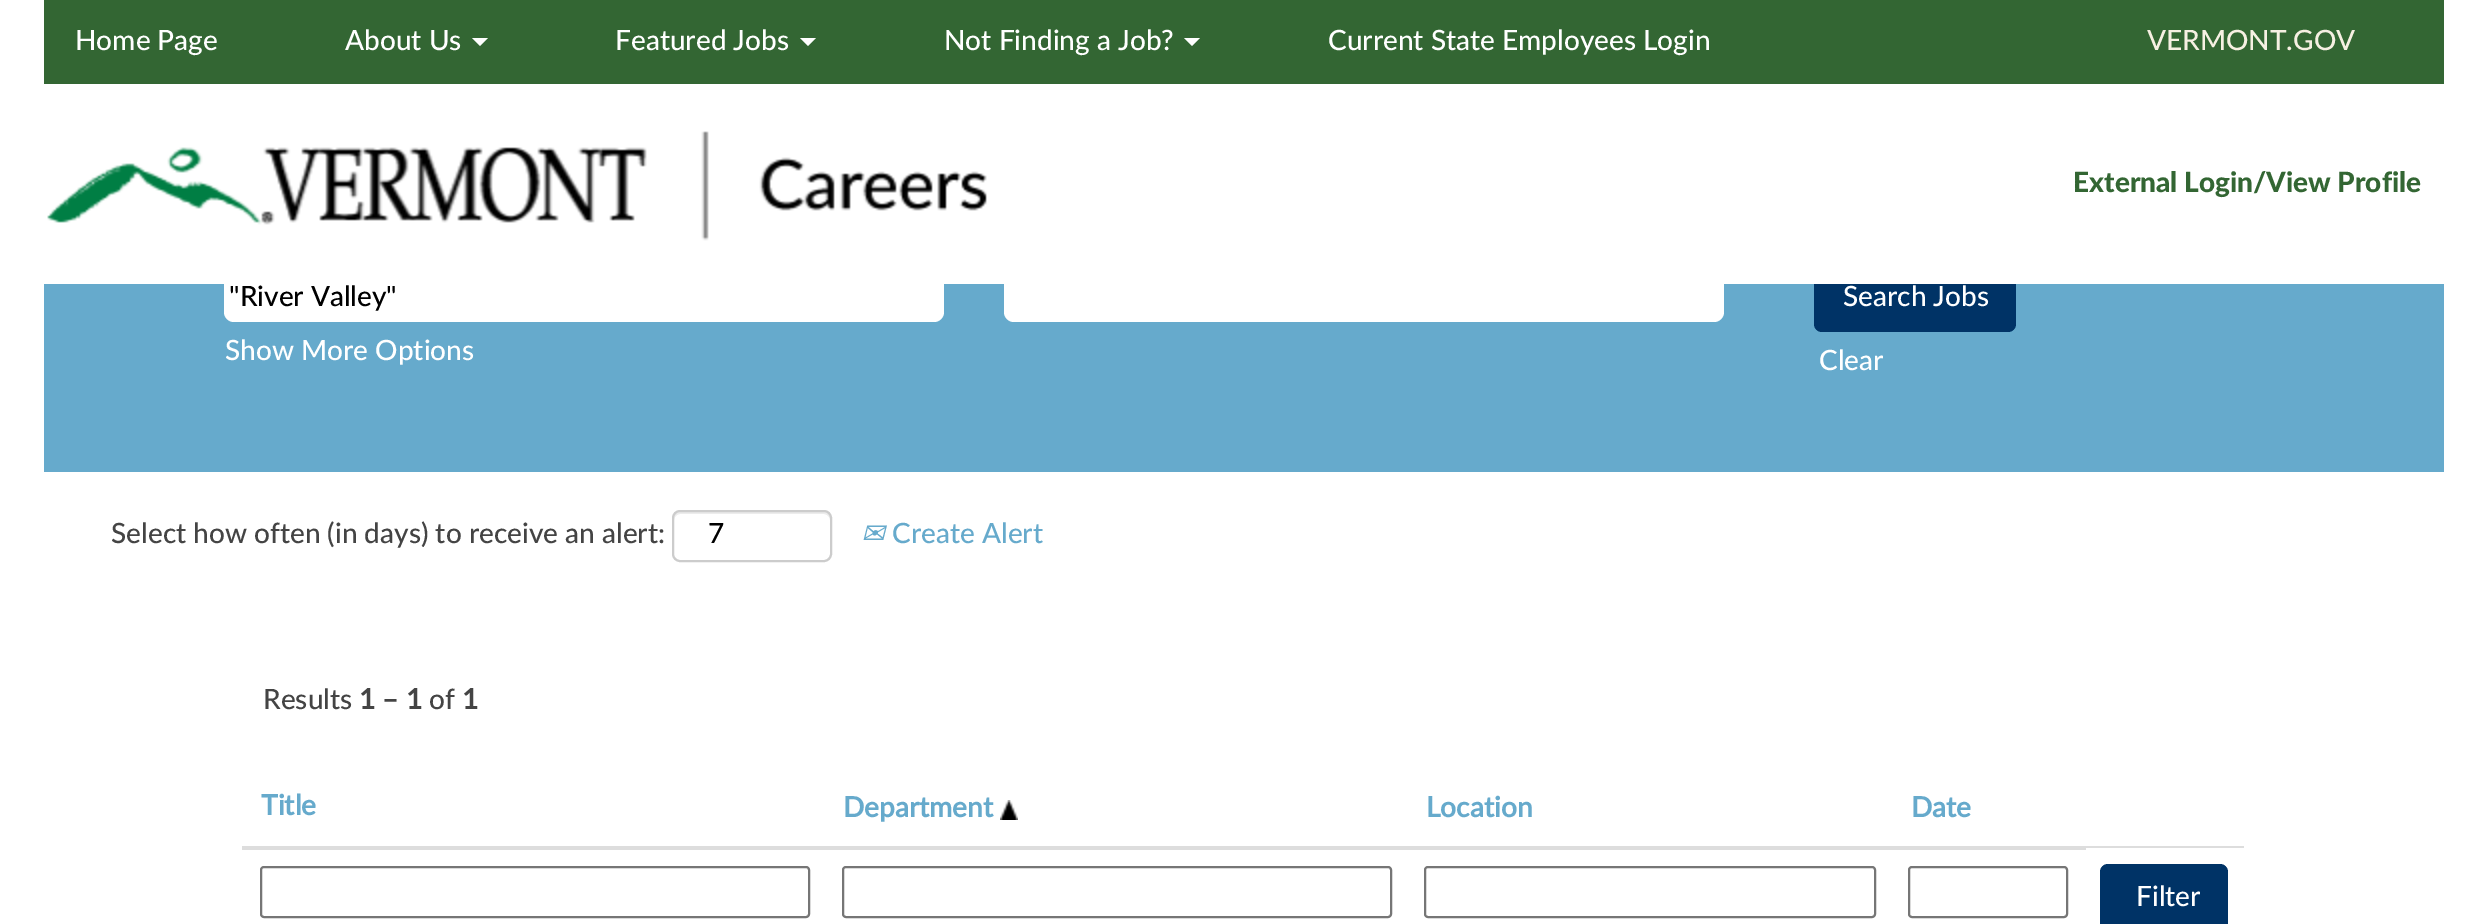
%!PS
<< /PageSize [2486 924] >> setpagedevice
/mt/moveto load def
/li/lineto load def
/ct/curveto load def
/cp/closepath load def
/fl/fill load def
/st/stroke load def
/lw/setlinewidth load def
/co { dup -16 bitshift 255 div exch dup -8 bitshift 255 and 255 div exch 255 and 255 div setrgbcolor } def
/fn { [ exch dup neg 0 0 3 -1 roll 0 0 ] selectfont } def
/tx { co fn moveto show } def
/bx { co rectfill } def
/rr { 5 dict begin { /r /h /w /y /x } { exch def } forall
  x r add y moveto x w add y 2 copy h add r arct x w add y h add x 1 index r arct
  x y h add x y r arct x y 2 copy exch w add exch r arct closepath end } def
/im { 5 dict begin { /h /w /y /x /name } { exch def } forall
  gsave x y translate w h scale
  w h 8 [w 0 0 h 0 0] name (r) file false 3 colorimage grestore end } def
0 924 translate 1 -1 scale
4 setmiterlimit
0 0 2486 924 16#FFFFFF bx
44 284 2400 188 16#66AACC bx
16#003366 co
1814 264 202 68 8 rr fl
1814 264 202 20 16#FFFFFF bx
44 0 2400 84 16#336633 bx
16#FFFFFF co
472 38 mt 488 38 li 480 46 li cp fl
800 38 mt 816 38 li 808 46 li cp fl
1184 38 mt 1200 38 li 1192 46 li cp fl
(media/1.raw) 47 131 940 110 im
224 274 720 48 10 rr fl
1004 274 720 48 10 rr fl
16#ECECEC co
680 514 mt 824 514 li 827 514 830 517 830 520 ct 830 518 li 830 515 827 512 824 512 ct 680 512 li 677 512 674 515 674 518 ct 674 520 li 674 517 677 514 680 514 ct cp fl
16#CCCCCC co
2 lw
673 511 158 50 7 rr st
(media/2.raw) 1000 800 18 20 im
2084 846 160 2 16#DDDDDD bx
242 846 1844 4 16#DDDDDD bx
16#767676 co
261 867 548 50 3 rr st
843 867 548 50 3 rr st
1425 867 450 50 3 rr st
1909 867 158 50 3 rr st
16#003366 co
2100 864 128 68 8 rr fl
(Home Page) 75 50 /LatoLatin-Medium 28 16#FFFFFF tx
(About Us) 345 50 /LatoLatin-Medium 28 16#FFFFFF tx
(Featured Jobs) 615 50 /LatoLatin-Medium 28 16#FFFFFF tx
(Not Finding a Job?) 944 50 /LatoLatin-Medium 28 16#FFFFFF tx
(Current State Employees Login) 1328 50 /LatoLatin-Medium 28 16#FFFFFF tx
(VERMONT.GOV) 2147 50 /LatoLatin-Medium 28 16#F6F0E2 tx
(External Login/View Profile) 2073 192 /LatoLatin-Black 28 16#336633 tx
("River Valley") 229 306 /LatoLatin-Medium 28 16#000000 tx
(Show More Options) 225 360 /LatoLatin-Medium 28 16#FFFFFF tx
(Search Jobs) 1843 306 /LatoLatin-Medium 28 16#FFFFFF tx
(Clear) 1819 370 /LatoLatin-Medium 28 16#FFFFFF tx
(Select how often \(in days\) to receive an alert:) 111 543 /LatoLatin-Medium 28 16#444444 tx
(7) 708 543 /LatoLatin-Medium 28 16#000000 tx
(✉) 861 543 /DejaVuSans-Italic 28 16#66AACC tx
(Create Alert) 892 543 /LatoLatin-Medium 28 16#66AACC tx
(Results) 263 709 /LatoLatin-Medium 28 16#444444 tx
(1 – 1) 359 709 /LatoLatin-Bold 28 16#444444 tx
(of) 429 709 /LatoLatin-Medium 28 16#444444 tx
(1) 462 709 /LatoLatin-Bold 28 16#444444 tx
(Title) 261 815 /LatoLatin-Bold 28 16#66AACC tx
(Department) 843 817 /LatoLatin-Bold 28 16#66AACC tx
(Location) 1426 817 /LatoLatin-Bold 28 16#66AACC tx
(Date) 1911 817 /LatoLatin-Bold 28 16#66AACC tx
(Filter) 2136 906 /LatoLatin-Medium 28 16#FFFFFF tx
showpage
